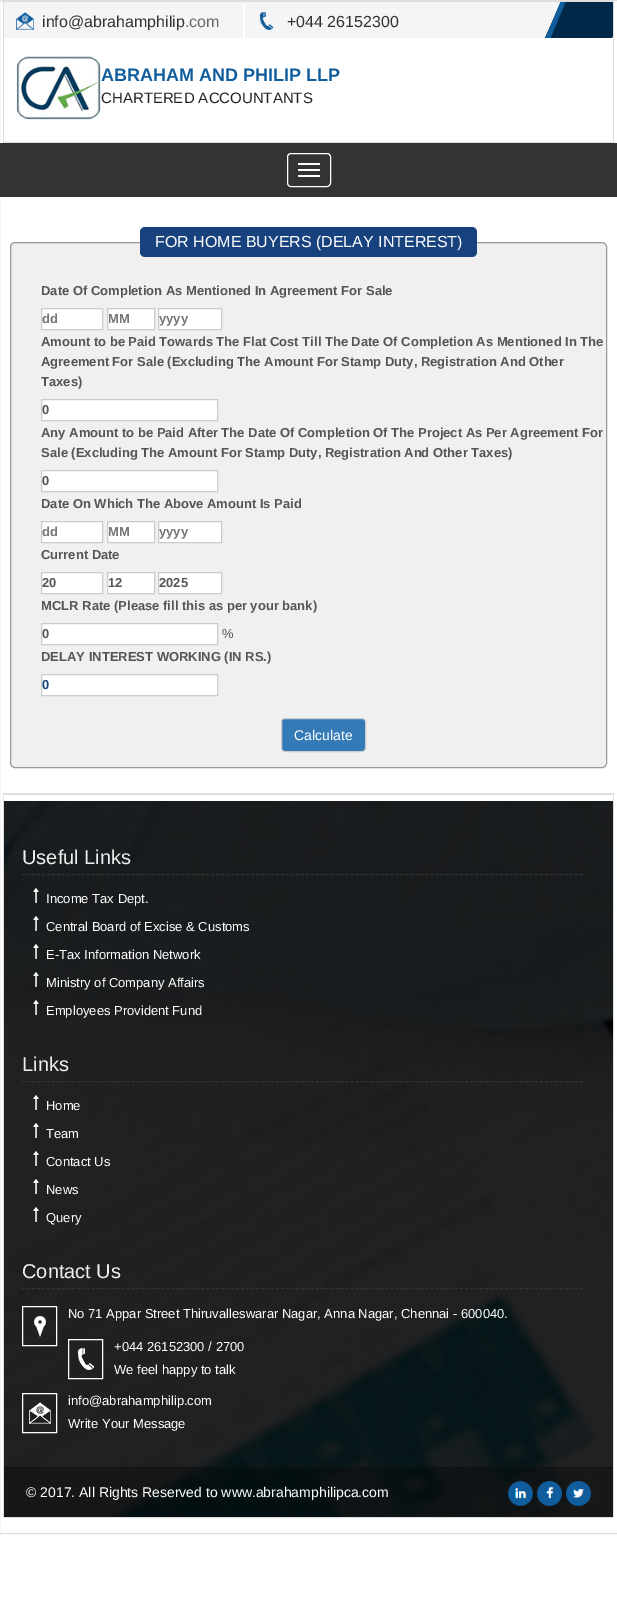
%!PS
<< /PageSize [617 1607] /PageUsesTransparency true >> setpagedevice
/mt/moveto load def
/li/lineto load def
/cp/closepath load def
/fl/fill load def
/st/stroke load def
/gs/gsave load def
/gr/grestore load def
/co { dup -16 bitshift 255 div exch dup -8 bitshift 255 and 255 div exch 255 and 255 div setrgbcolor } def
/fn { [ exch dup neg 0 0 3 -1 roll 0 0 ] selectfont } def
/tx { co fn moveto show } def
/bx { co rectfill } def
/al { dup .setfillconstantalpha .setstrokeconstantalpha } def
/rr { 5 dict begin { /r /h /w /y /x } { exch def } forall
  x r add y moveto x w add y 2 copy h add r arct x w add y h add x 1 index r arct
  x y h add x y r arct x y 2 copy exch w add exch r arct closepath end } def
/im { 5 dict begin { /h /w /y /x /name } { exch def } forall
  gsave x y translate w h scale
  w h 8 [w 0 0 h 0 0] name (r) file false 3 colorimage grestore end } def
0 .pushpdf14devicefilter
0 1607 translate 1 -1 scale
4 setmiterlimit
0 0 617 1607 16#FFFFFF bx
16#DDDDDD co
-.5 .5 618 1533 rectstroke
3 1 611 1 16#DDDDDD bx
613 1 1 142 16#DDDDDD bx
3 142 611 1 16#DDDDDD bx
3 1 1 142 16#DDDDDD bx
4 2 609 36 16#F5F5F5 bx
243 4 2 34 16#FFFFFF bx
(media/1.raw) 16 12 18 18 im
(media/2.raw) 259 12 15 18 im
gs
4 2 609 36 rectclip
16#002848 co
561 2 mt 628 2 li 612 38 li 545 38 li cp fl
gr
16#0F5D9D co
560.5 2 mt 565.5 2 li 550.5 38 li 545.5 38 li cp fl
(media/3.raw) 16 56 85 64 im
0 143 617 54 16#333333 bx
16#FFFFFF co
287.5 153.5 43 33 3.5 rr st
298 163 22 2 1 rr fl
298 169 22 2 1 rr fl
298 175 22 2 1 rr fl
16#F0F0F0 co
10.5 242.5 596 525 4.5 rr gs fl gr
16#999999 co
st
16#18427D co
140 227 337 30 5 rr fl
16#FFFFFF co
41.5 308.5 mt 102.5 308.5 li 102.5 329.5 li 41.5 329.5 li cp gs fl gr
16#CCCCCC co
st
16#FFFFFF co
107.5 308.5 mt 154.5 308.5 li 154.5 329.5 li 107.5 329.5 li cp gs fl gr
16#CCCCCC co
st
16#FFFFFF co
158.5 308.5 mt 221.5 308.5 li 221.5 329.5 li 158.5 329.5 li cp gs fl gr
16#CCCCCC co
st
16#FFFFFF co
41.5 399.5 mt 217.5 399.5 li 217.5 420.5 li 41.5 420.5 li cp gs fl gr
16#CCCCCC co
st
16#FFFFFF co
41.5 470.5 mt 217.5 470.5 li 217.5 491.5 li 41.5 491.5 li cp gs fl gr
16#CCCCCC co
st
16#FFFFFF co
41.5 521.5 mt 102.5 521.5 li 102.5 542.5 li 41.5 542.5 li cp gs fl gr
16#CCCCCC co
st
16#FFFFFF co
107.5 521.5 mt 154.5 521.5 li 154.5 542.5 li 107.5 542.5 li cp gs fl gr
16#CCCCCC co
st
16#FFFFFF co
158.5 521.5 mt 221.5 521.5 li 221.5 542.5 li 158.5 542.5 li cp gs fl gr
16#CCCCCC co
st
16#FFFFFF co
41.5 572.5 mt 102.5 572.5 li 102.5 593.5 li 41.5 593.5 li cp gs fl gr
16#CCCCCC co
st
16#FFFFFF co
107.5 572.5 mt 154.5 572.5 li 154.5 593.5 li 107.5 593.5 li cp gs fl gr
16#CCCCCC co
st
16#FFFFFF co
158.5 572.5 mt 221.5 572.5 li 221.5 593.5 li 158.5 593.5 li cp gs fl gr
16#CCCCCC co
st
16#FFFFFF co
41.5 623.5 mt 217.5 623.5 li 217.5 644.5 li 41.5 644.5 li cp gs fl gr
16#CCCCCC co
st
16#FFFFFF co
41.5 674.5 mt 217.5 674.5 li 217.5 695.5 li 41.5 695.5 li cp gs fl gr
16#CCCCCC co
st
16#337AB7 co
281.5 718.5 84 33 3.5 rr gs fl gr
16#CCCCCC co
st
3 793 611 1 16#DDDDDD bx
613 793 1 725 16#DDDDDD bx
3 1517 611 1 16#DDDDDD bx
3 793 1 725 16#DDDDDD bx
4 794 609 1 16#DDDDDD bx
(media/4.raw) 4 801 609 716 im
16#333333 co
[3 1.98] 0 setdash
22 874.5 mt 583 874.5 li st
(media/5.raw) 33 888 6 15 im
(media/6.raw) 33 916 6 15 im
(media/7.raw) 33 944 6 15 im
(media/8.raw) 33 972 6 15 im
(media/9.raw) 33 1000 6 15 im
22 1081.5 mt 583 1081.5 li st
(media/10.raw) 33 1095 6 15 im
(media/11.raw) 33 1123 6 15 im
(media/10.raw) 33 1151 6 15 im
(media/12.raw) 33 1179 6 15 im
(media/13.raw) 33 1207 6 15 im
22 1288.5 mt 583 1288.5 li st
16#FFFFFF co
[] 0 setdash
22.5 1306.5 34 39 rectstroke
(media/14.raw) 34 1316 12 21 im
68.5 1339.5 34 39 rectstroke
(media/15.raw) 78 1348 16 22 im
22.5 1393.5 34 39 rectstroke
(media/16.raw) 29 1402 22 22 im
0.3 al
4 1468 609 49 16#000000 bx
1 al
4 1467 609 1 16#111111 bx
(media/17.raw) 508 1481 25 25 im
(media/18.raw) 537 1481 25 25 im
(media/19.raw) 566 1481 25 25 im
(info@abrahamphilip) 42 27 /LiberationSans-Regular 16 16#333333 tx
(.com) 185 27 /LiberationSans-Regular 16 16#666666 tx
(+044 26152300) 287 27 /LiberationSans-Regular 16 16#333333 tx
(ABRAHAM AND PHILIP LLP) 101 81 /LiberationSans-Bold 18 16#0F5D9D tx
(CHARTERED ACCOUNTANTS) 101 103 /LiberationSans-Regular 15 16#222222 tx
(FOR HOME BUYERS \(DELAY INTEREST\)) 155 247 /LiberationSans-Regular 16 16#FFFFFF tx
(Date Of Completion As Mentioned In Agreement For Sale) 41 295 /LiberationSans-Bold 13 16#555555 tx
(dd) 42 323 /LiberationSans-Bold 13 16#757575 tx
(MM) 108 323 /LiberationSans-Bold 13 16#757575 tx
(yyyy) 159 323 /LiberationSans-Bold 13 16#757575 tx
(Amount to be Paid Towards The Flat Cost Till The Date Of Completion As Mentioned In The) 41 346 /LiberationSans-Bold 13 16#555555 tx
(Agreement For Sale \(Excluding The Amount For Stamp Duty, Registration And Other) 41 366 /LiberationSans-Bold 13 16#555555 tx
(Taxes\)) 41 386 /LiberationSans-Bold 13 16#555555 tx
(0) 42 414 /LiberationSans-Bold 13 16#555555 tx
(Any Amount to be Paid After The Date Of Completion Of The Project As Per Agreement For) 41 437 /LiberationSans-Bold 13 16#555555 tx
(Sale \(Excluding The Amount For Stamp Duty, Registration And Other Taxes\)) 41 457 /LiberationSans-Bold 13 16#555555 tx
(0) 42 485 /LiberationSans-Bold 13 16#555555 tx
(Date On Which The Above Amount Is Paid) 41 508 /LiberationSans-Bold 13 16#555555 tx
(dd) 42 536 /LiberationSans-Bold 13 16#757575 tx
(MM) 108 536 /LiberationSans-Bold 13 16#757575 tx
(yyyy) 159 536 /LiberationSans-Bold 13 16#757575 tx
(Current Date) 41 559 /LiberationSans-Bold 13 16#555555 tx
(20) 42 587 /LiberationSans-Bold 13 16#555555 tx
(12) 108 587 /LiberationSans-Bold 13 16#555555 tx
(2025) 159 587 /LiberationSans-Bold 13 16#555555 tx
(MCLR Rate \(Please fill this as per your bank\)) 41 610 /LiberationSans-Bold 13 16#555555 tx
(0) 42 638 /LiberationSans-Bold 13 16#555555 tx
(%) 222 638 /LiberationSans-Regular 13 16#555555 tx
(DELAY INTEREST WORKING \(IN RS.\)) 41 661 /LiberationSans-Bold 13 16#555555 tx
(0) 42 689 /LiberationSans-Bold 13 16#18427D tx
(Calculate) 294 740 /LiberationSans-Regular 14 16#FFFFFF tx
(Useful Links) 22 864 /LiberationSans-Regular 20 16#EEEEEE tx
(Income Tax Dept.) 46 903 /LiberationSans-Regular 13 16#FFFFFF tx
(Central Board of Excise & Customs) 46 931 /LiberationSans-Regular 13 16#FFFFFF tx
(E-Tax Information Network) 46 959 /LiberationSans-Regular 13 16#FFFFFF tx
(Ministry of Company Affairs) 46 987 /LiberationSans-Regular 13 16#FFFFFF tx
(Employees Provident Fund) 46 1015 /LiberationSans-Regular 13 16#FFFFFF tx
(Links) 22 1071 /LiberationSans-Regular 20 16#EEEEEE tx
(Home) 46 1110 /LiberationSans-Regular 13 16#FFFFFF tx
(Team) 46 1138 /LiberationSans-Regular 13 16#FFFFFF tx
(Contact Us) 46 1166 /LiberationSans-Regular 13 16#FFFFFF tx
(News) 46 1194 /LiberationSans-Regular 13 16#FFFFFF tx
(Query) 46 1222 /LiberationSans-Regular 13 16#FFFFFF tx
(Contact Us) 22 1278 /LiberationSans-Regular 20 16#EEEEEE tx
(No 71 Appar Street Thiruvalleswarar Nagar, Anna Nagar, Chennai - 600040.) 68 1318 /LiberationSans-Regular 13 16#FFFFFF tx
(+044 26152300 / 2700) 114 1351 /LiberationSans-Regular 13 16#FFFFFF tx
(We feel happy to talk) 114 1374 /LiberationSans-Regular 13 16#FFFFFF tx
(info@abrahamphilip.com) 68 1405 /LiberationSans-Regular 13 16#FFFFFF tx
(Write Your Message) 68 1428 /LiberationSans-Regular 13 16#FFFFFF tx
(© 2017. All Rights Reserved to www.abrahamphilipca.com) 26 1497 /LiberationSans-Regular 14 16#FFFFFF tx
.poppdf14devicefilter showpage
